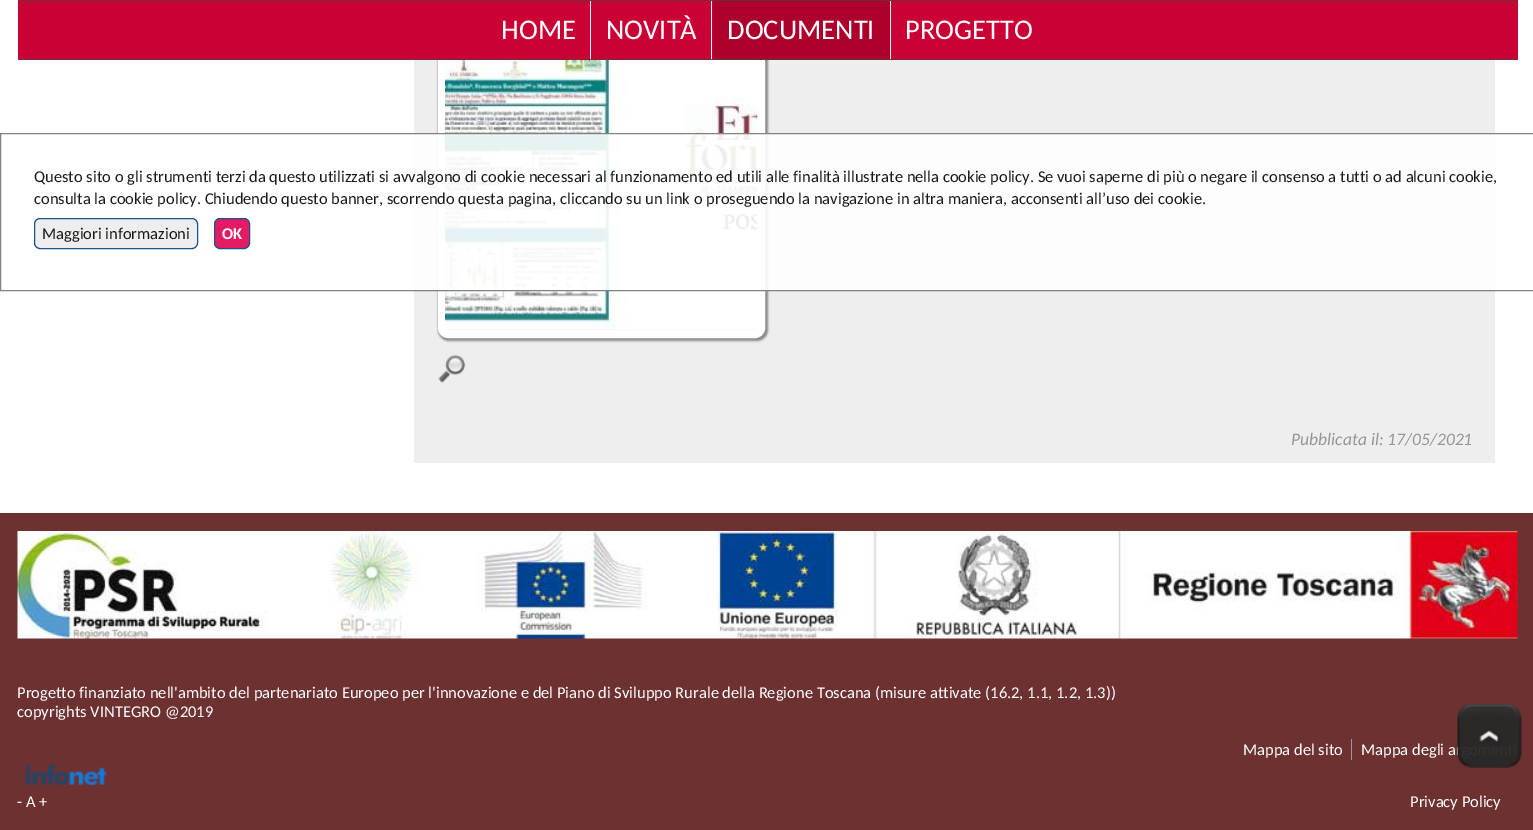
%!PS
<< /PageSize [1533 830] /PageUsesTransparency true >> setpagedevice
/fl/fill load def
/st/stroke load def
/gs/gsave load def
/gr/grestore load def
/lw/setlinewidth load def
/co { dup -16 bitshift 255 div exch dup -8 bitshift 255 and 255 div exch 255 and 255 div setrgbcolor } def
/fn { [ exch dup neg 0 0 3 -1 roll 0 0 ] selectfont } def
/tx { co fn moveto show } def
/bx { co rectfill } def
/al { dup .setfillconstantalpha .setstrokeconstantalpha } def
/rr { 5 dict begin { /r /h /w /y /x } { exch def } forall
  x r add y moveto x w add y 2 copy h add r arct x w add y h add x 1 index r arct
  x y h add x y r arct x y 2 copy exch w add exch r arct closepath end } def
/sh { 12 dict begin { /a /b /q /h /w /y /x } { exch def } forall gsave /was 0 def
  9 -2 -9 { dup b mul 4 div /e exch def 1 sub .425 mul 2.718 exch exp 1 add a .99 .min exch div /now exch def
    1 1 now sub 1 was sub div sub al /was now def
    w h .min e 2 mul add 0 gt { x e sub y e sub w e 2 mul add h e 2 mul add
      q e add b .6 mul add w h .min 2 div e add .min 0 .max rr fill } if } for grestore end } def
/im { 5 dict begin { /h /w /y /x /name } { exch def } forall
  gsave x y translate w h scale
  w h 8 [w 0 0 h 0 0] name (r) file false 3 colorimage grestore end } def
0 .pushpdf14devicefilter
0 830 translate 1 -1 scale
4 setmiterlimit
0 0 1533 830 16#FFFFFF bx
414 60 1081 403 16#EEEEEE bx
16#888888 co
438 11 330 330 11 1 1 sh
16#FFFFFF co
8 lw
442 14 319 320 6 rr st
18 1 1500 58 16#CB0035 bx
18 0 1500 1 16#6D3131 bx
18 59 1500 1 16#6D3131 bx
590 1 1 58 16#FFFFFF bx
711 1 1 58 16#FFFFFF bx
713 1 177 58 16#AE002C bx
890 1 1 58 16#FFFFFF bx
0 513 1533 317 16#6D3131 bx
(media/3.raw) 445 60 313 270 im
0.9 al
414 133 1081 158 16#FFFFFF bx
16#757575 co
1 lw
.5 133.5 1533 157 rectstroke
1 al
16#EEEEEE co
34.5 218.5 163 30 5.5 rr gs fl gr
16#1A538D co
st
16#E41B62 co
214.5 218.5 35 30 5.5 rr gs fl gr
16#1A538D co
st
(media/1.raw) 17 531 1501 108 im
1351 739 1 21 16#989898 bx
(media/2.raw) 25 764 82 21 im
(media/4.raw) 438 354 28 29 im
(HOME) 501 39 /Carlito-Regular 28.5 16#FFFFFF tx
(NOVITÀ) 606 39 /Carlito-Regular 28.5 16#FFFFFF tx
(DOCUMENTI) 727 39 /Carlito-Regular 28.5 16#FFFFFF tx
(PROGETTO) 905 39 /Carlito-Regular 28.5 16#FFFFFF tx
(Questo sito o gli strumenti terzi da questo utilizzati si avvalgono di cookie necessari al funzionamento ed utili alle finalità illustrate nella cookie policy. Se vuoi saperne di più o negare il consenso a tutti o ad alcuni cookie,) 34 182 /Carlito-Regular 16.5 16#191919 tx
(consulta la cookie policy. Chiudendo questo banner, scorrendo questa pagina, cliccando su un link o proseguendo la navigazione in altra maniera, acconsenti all’uso dei cookie.) 34 204 /Carlito-Regular 16.5 16#191919 tx
(Maggiori informazioni) 42 239 /Carlito-Regular 16.5 16#191919 tx
(OK) 222 239 /Carlito-Bold 16.5 16#FFFFFF tx
(Progetto finanziato nell'ambito del partenariato Europeo per l'innovazione e del Piano di Sviluppo Rurale della Regione Toscana \(misure attivate \(16.2, 1.1, 1.2, 1.3\)\)) 17 698 /Carlito-Regular 16.5 16#FFFFFF tx
(copyrights VINTEGRO @2019) 17 717 /Carlito-Regular 16.5 16#FFFFFF tx
(Mappa del sito) 1243 755 /Carlito-Regular 16.5 16#FFFFFF tx
(Mappa degli ar) 1361 755 /Carlito-Regular 16.5 16#FFFFFF tx
(- A +) 17 807 /Carlito-Regular 16.5 16#FFFFFF tx
(Privacy Policy) 1410 807 /Carlito-Regular 16.5 16#FFFFFF tx
(Pubblicata il: 17/05/2021) 1291 445 /Carlito-Italic 17.6 16#969696 tx
(media/5.raw) 1457 703 65 65 im
.poppdf14devicefilter showpage
